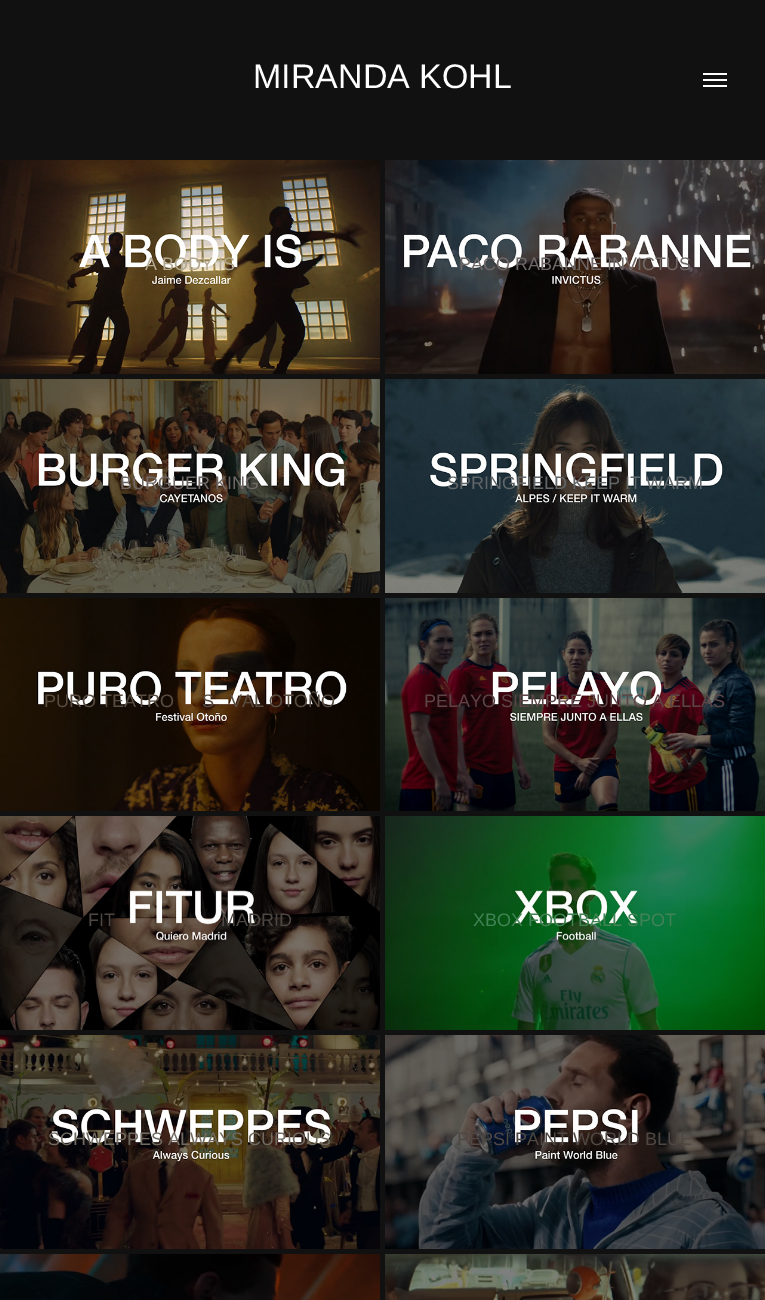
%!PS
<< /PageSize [765 1300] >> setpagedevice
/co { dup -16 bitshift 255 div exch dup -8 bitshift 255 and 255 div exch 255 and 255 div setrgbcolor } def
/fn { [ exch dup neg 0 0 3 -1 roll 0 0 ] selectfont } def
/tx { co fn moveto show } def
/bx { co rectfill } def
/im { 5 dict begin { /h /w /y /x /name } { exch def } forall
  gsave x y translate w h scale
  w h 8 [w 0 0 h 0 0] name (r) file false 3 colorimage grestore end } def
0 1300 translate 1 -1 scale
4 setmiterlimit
0 0 765 1300 16#111111 bx
703 73 24 2 16#FFFFFF bx
703 79 24 2 16#FFFFFF bx
703 85 24 2 16#FFFFFF bx
(media/1.raw) 0 160 380 214 im
(media/2.raw) 385 160 380 214 im
(media/3.raw) 0 379 380 214 im
(media/4.raw) 385 379 380 214 im
(media/5.raw) 0 598 380 213 im
(media/6.raw) 385 598 380 213 im
(media/7.raw) 0 816 380 214 im
(media/8.raw) 385 816 380 214 im
(media/9.raw) 0 1035 380 214 im
(media/10.raw) 385 1035 380 214 im
(media/11.raw) 0 1254 380 46 im
(media/12.raw) 385 1254 380 46 im
(MIRANDA KOHL) 253 88 /LiberationSans-Regular 34 16#FFFFFF tx
(A BODY IS) 145 270 /LiberationSans-Regular 18 16#B2A68D tx
(PACO RABANNE INVICTUS) 459 270 /LiberationSans-Regular 18 16#6F6867 tx
(BURGUER KING) 120 489 /LiberationSans-Regular 18 16#6F6867 tx
(SPRINGFIELD KEEP IT WARM) 447 489 /LiberationSans-Regular 18 16#616669 tx
(PURO TEATRO) 44 707 /LiberationSans-Regular 18 16#594D42 tx
(S) 202 707 /LiberationSans-Regular 18 16#594D42 tx
(VAL OTOÑO) 230 707 /LiberationSans-Regular 18 16#594D42 tx
(PELAYO SIEMPRE JUNTO A ELLAS) 424 707 /LiberationSans-Regular 18 16#5D4547 tx
(FIT) 88 926 /LiberationSans-Regular 18 16#4E4742 tx
(MADRID) 221 926 /LiberationSans-Regular 18 16#4E4742 tx
(XBOX FOOTBALL SPOT) 473 926 /LiberationSans-Regular 18 16#418354 tx
(SCHWEPPES ALWAYS CURIOUS) 48 1145 /LiberationSans-Regular 18 16#716A61 tx
(PEPSI PAINT WORLD BLUE) 457 1145 /LiberationSans-Regular 18 16#4E4742 tx
showpage
